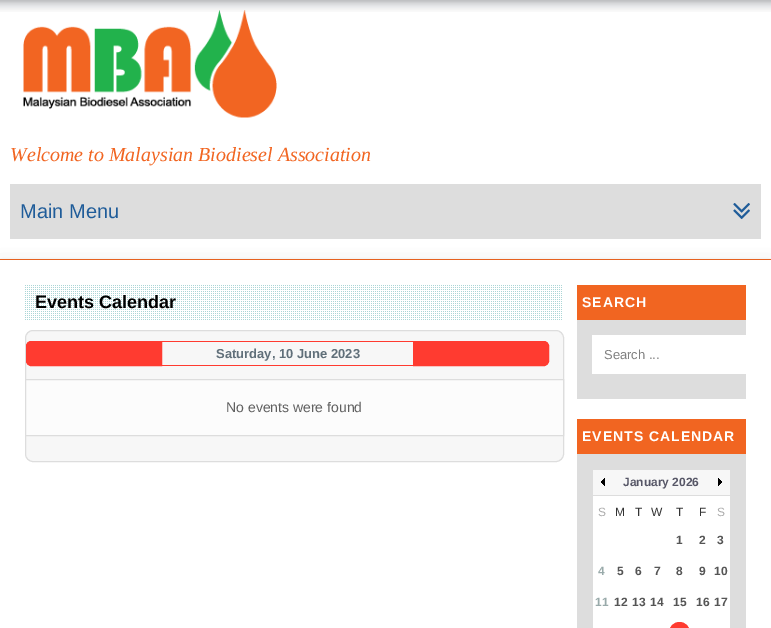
%!PS
<< /PageSize [771 628] /PageUsesTransparency true >> setpagedevice
/mt/moveto load def
/li/lineto load def
/ct/curveto load def
/cp/closepath load def
/fl/fill load def
/st/stroke load def
/gs/gsave load def
/gr/grestore load def
/co { dup -16 bitshift 255 div exch dup -8 bitshift 255 and 255 div exch 255 and 255 div setrgbcolor } def
/fn { [ exch dup neg 0 0 3 -1 roll 0 0 ] selectfont } def
/tx { co fn moveto show } def
/bx { co rectfill } def
/al { dup .setfillconstantalpha .setstrokeconstantalpha } def
/rr { 5 dict begin { /r /h /w /y /x } { exch def } forall
  x r add y moveto x w add y 2 copy h add r arct x w add y h add x 1 index r arct
  x y h add x y r arct x y 2 copy exch w add exch r arct closepath end } def
/sh { 12 dict begin { /a /b /q /h /w /y /x } { exch def } forall gsave /was 0 def
  9 -2 -9 { dup b mul 4 div /e exch def 1 sub .425 mul 2.718 exch exp 1 add a .99 .min exch div /now exch def
    1 1 now sub 1 was sub div sub al /was now def
    w h .min e 2 mul add 0 gt { x e sub y e sub w e 2 mul add h e 2 mul add
      q e add b .6 mul add w h .min 2 div e add .min 0 .max rr fill } if } for grestore end } def
/im { 5 dict begin { /h /w /y /x /name } { exch def } forall
  gsave x y translate w h scale
  w h 8 [w 0 0 h 0 0] name (r) file false 3 colorimage grestore end } def
0 .pushpdf14devicefilter
0 628 translate 1 -1 scale
4 setmiterlimit
0 0 771 628 16#FFFFFF bx
(media/1.raw) 0 0 771 12 im
0 259 771 1 16#F16521 bx
(media/2.raw) 23 10 254 108 im
10 184 751 55 16#DDDDDD bx
(media/3.raw) 733 203 17 17 im
16#000000 co
0 270 771 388 0 10 .3 sh
0 260 771 368 16#FFFFFF bx
(media/4.raw) 25 285 537 35 im
16#F7F7F7 co
25.5 330.5 538 131 7.5 rr gs fl gr
16#DDDDDD co
st
16#FF3B30 co
31 341.5 mt 161.5 341.5 li 161.5 365.5 li 31 365.5 li 28.5 365.5 26.5 363.5 26.5 361 ct 26.5 346 li 26.5 343.5 28.5 341.5 31 341.5 ct cp gs fl gr
st
162 341 251 1 16#FF3B30 bx
162 365 251 1 16#FF3B30 bx
413.5 341.5 mt 544 341.5 li 546.5 341.5 548.5 343.5 548.5 346 ct 548.5 361 li 548.5 363.5 546.5 365.5 544 365.5 ct 413.5 365.5 li cp gs fl gr
st
16#FCFCFC co
25.5 379.5 mt 563.5 379.5 li 563.5 435.5 li 25.5 435.5 li cp gs fl gr
16#DDDDDD co
st
577 285 169 35 16#F16521 bx
577 320 169 79 16#DDDDDD bx
592 335 154 39 16#FFFFFF bx
577 419 169 35 16#F16521 bx
577 454 169 174 16#DDDDDD bx
593 496 137 132 16#FFFFFF bx
593 470 137 25 16#F7F7F7 bx
(media/5.raw) 601 478 4 8 im
(media/6.raw) 718 478 4 8 im
16#FF3B30 co
669.5 622.5 20 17 10 rr gs fl gr
st
(Welcome to Malaysian Biodiesel Association) 10 161 /LiberationSerif-Italic 20 16#F16521 tx
(Main Menu) 20 218 /LiberationSans-Regular 20 16#1F5C99 tx
(Events Calendar) 35 308 /LiberationSans-Bold 18 16#000000 tx
(Saturday, 10 June 2023) 216 358 /LiberationSans-Bold 13 16#606F79 tx
(No events were found) 226 412 /LiberationSans-Regular 14 16#606060 tx
/LiberationSans-Bold 14 fn
16#FFFFFF co
582 307 mt 1 0 (SEARCH) ashow
(Search ...) 604 359 /LiberationSans-Regular 13 16#808080 tx
/LiberationSans-Bold 14 fn
16#FFFFFF co
582 441 mt 1 0 (EVENTS CALENDAR) ashow
(January 2026) 623 486 /LiberationSans-Bold 12 16#565666 tx
(S) 598 516 /LiberationSans-Regular 12 16#ADADAD tx
(M) 615 516 /LiberationSans-Regular 12 16#333333 tx
(T) 635 516 /LiberationSans-Regular 12 16#333333 tx
(W) 651 516 /LiberationSans-Regular 12 16#333333 tx
(T) 676 516 /LiberationSans-Regular 12 16#333333 tx
(F) 699 516 /LiberationSans-Regular 12 16#333333 tx
(S) 717 516 /LiberationSans-Regular 12 16#ADADAD tx
(1) 676 544 /LiberationSans-Bold 12 16#555555 tx
(2) 699 544 /LiberationSans-Bold 12 16#555555 tx
(3) 717 544 /LiberationSans-Bold 12 16#555555 tx
(4) 598 575 /LiberationSans-Bold 12 16#99AAAA tx
(5) 617 575 /LiberationSans-Bold 12 16#555555 tx
(6) 635 575 /LiberationSans-Bold 12 16#555555 tx
(7) 654 575 /LiberationSans-Bold 12 16#555555 tx
(8) 676 575 /LiberationSans-Bold 12 16#555555 tx
(9) 699 575 /LiberationSans-Bold 12 16#555555 tx
(10) 714 575 /LiberationSans-Bold 12 16#555555 tx
(11) 595 606 /LiberationSans-Bold 12 16#99AAAA tx
(12) 614 606 /LiberationSans-Bold 12 16#555555 tx
(13) 632 606 /LiberationSans-Bold 12 16#555555 tx
(14) 650 606 /LiberationSans-Bold 12 16#555555 tx
(15) 673 606 /LiberationSans-Bold 12 16#555555 tx
(16) 696 606 /LiberationSans-Bold 12 16#555555 tx
(17) 714 606 /LiberationSans-Bold 12 16#555555 tx
.poppdf14devicefilter showpage
